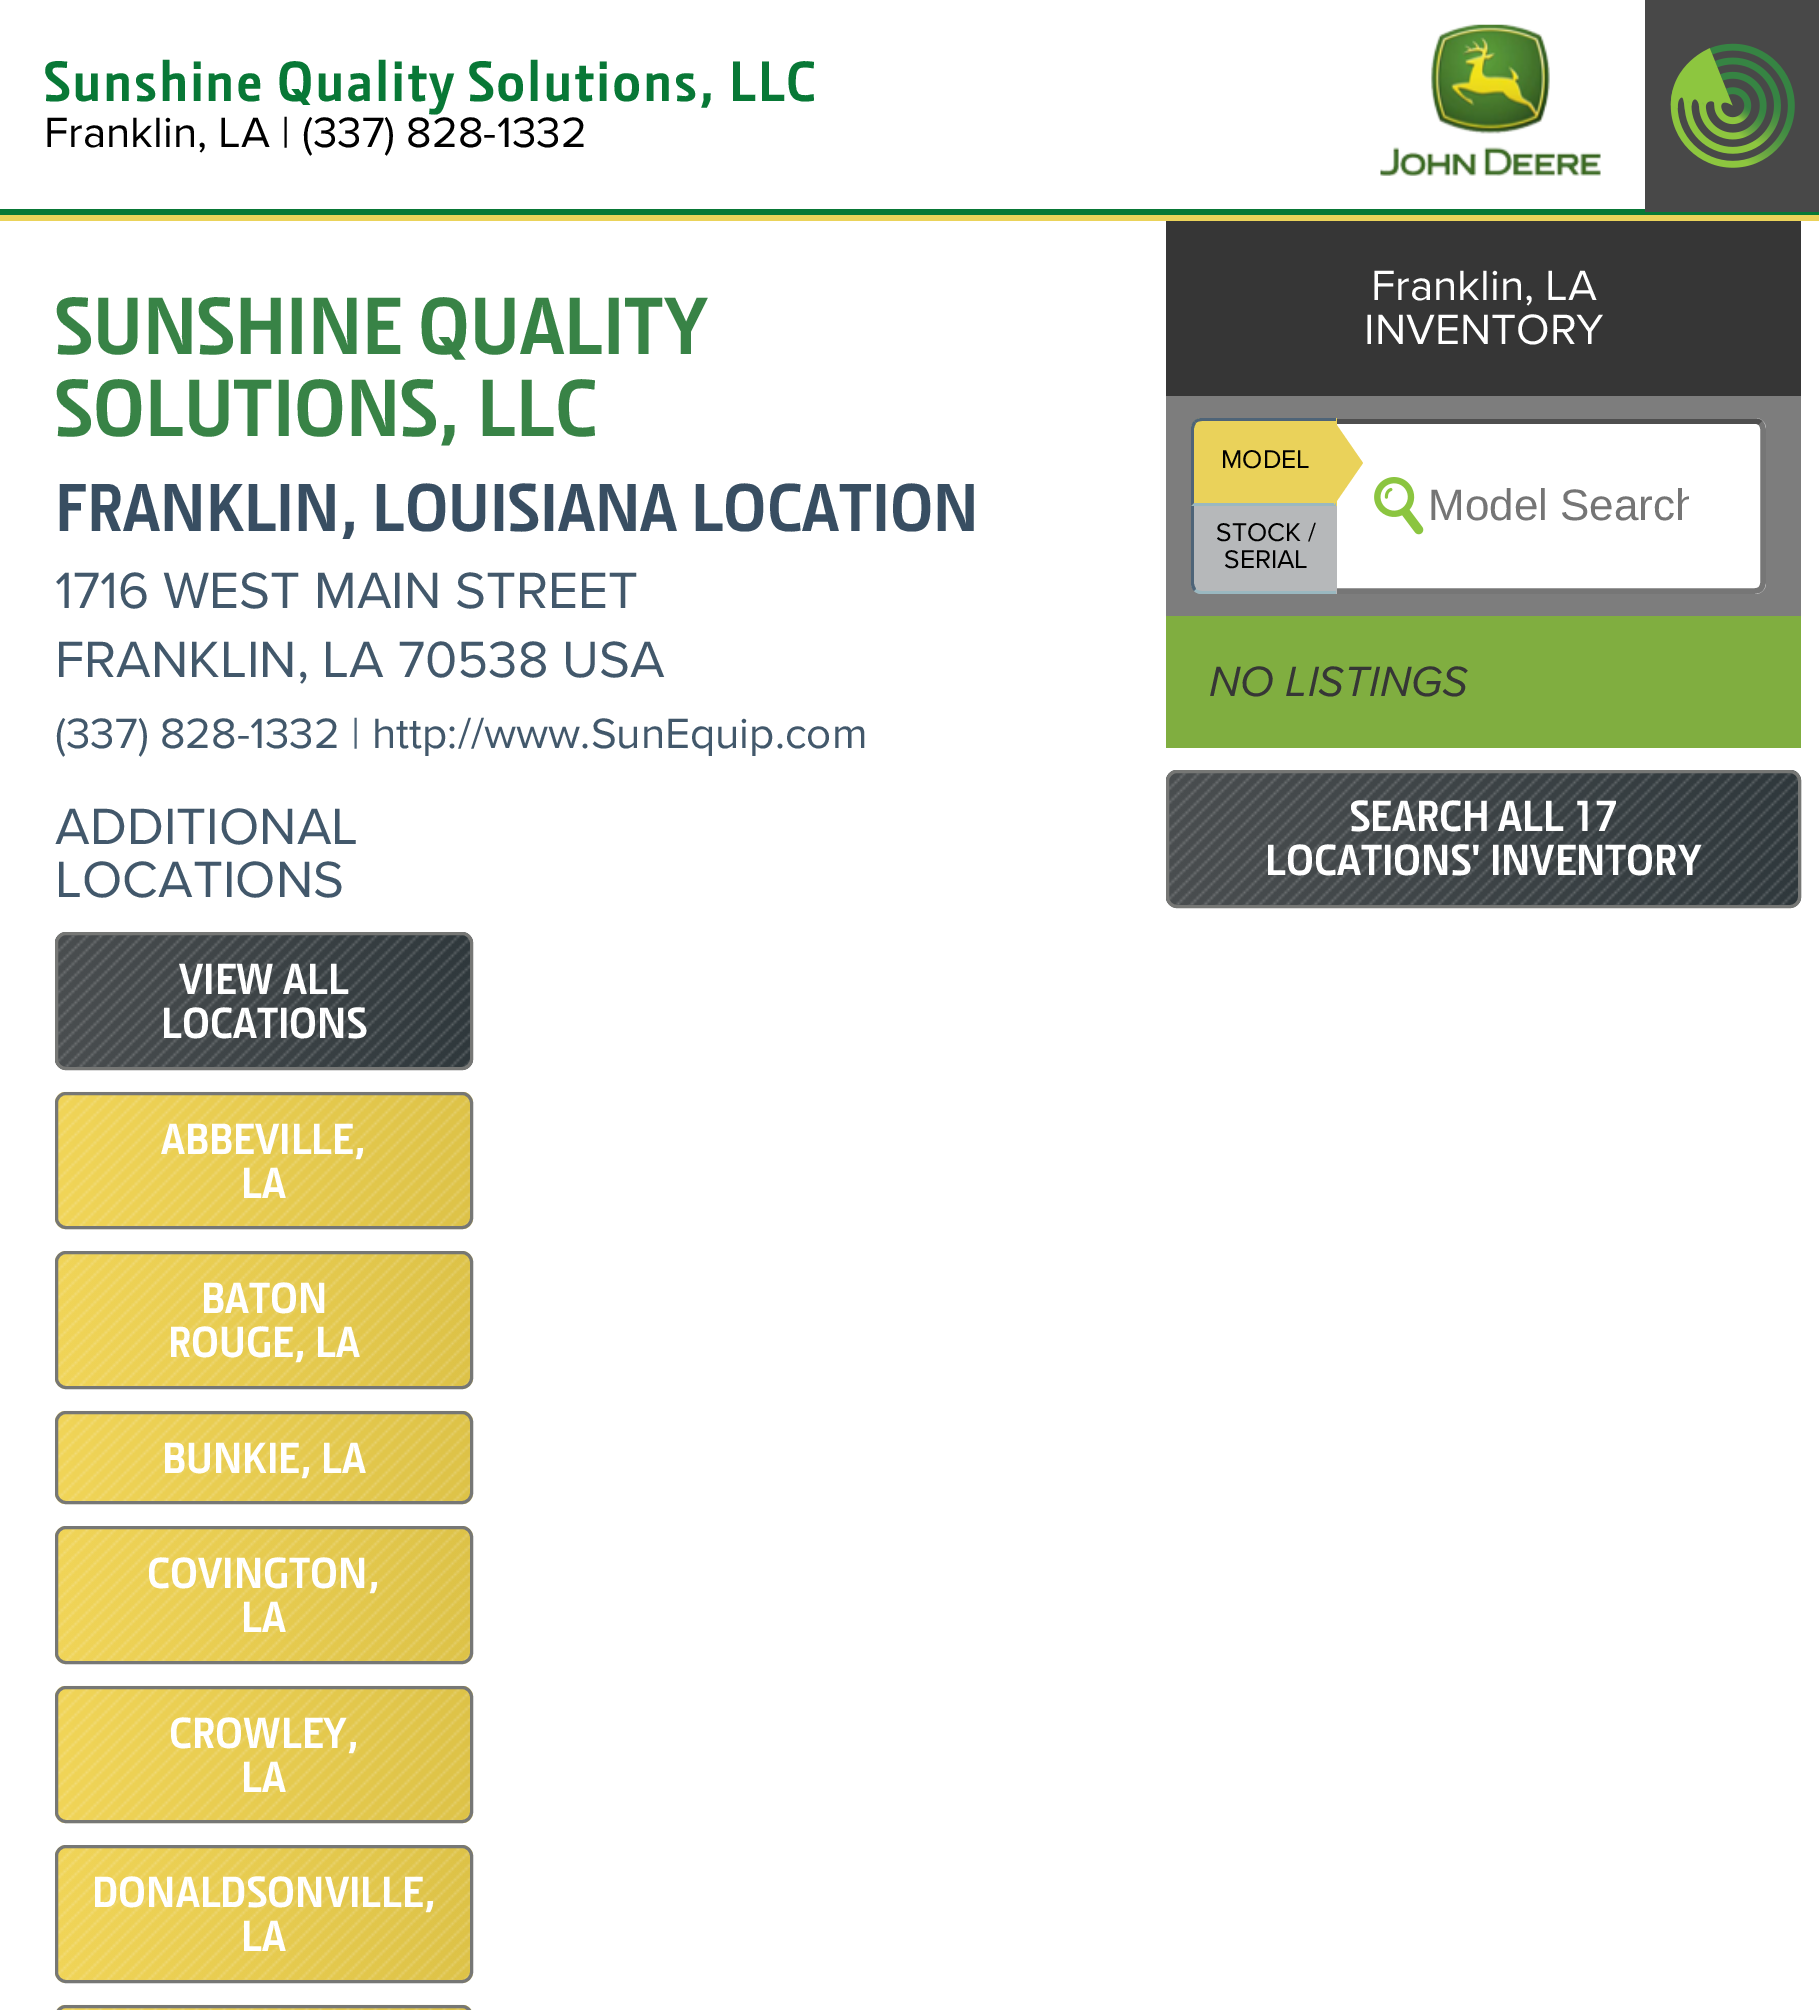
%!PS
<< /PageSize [1819 2010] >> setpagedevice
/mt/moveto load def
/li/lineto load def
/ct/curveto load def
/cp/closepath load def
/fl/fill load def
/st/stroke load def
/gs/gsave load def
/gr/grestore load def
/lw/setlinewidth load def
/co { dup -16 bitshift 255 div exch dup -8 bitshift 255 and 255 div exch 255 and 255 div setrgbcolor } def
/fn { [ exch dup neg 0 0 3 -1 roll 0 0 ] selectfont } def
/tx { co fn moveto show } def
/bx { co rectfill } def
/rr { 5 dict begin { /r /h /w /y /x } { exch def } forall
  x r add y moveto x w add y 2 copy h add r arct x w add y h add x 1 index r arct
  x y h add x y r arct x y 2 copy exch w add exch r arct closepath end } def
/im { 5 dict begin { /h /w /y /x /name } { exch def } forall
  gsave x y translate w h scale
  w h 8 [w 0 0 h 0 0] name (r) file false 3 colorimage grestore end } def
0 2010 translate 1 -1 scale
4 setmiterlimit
0 0 1819 2010 16#FFFFFF bx
0 215 1819 6 16#EBD35A bx
0 209 1819 6 16#087836 bx
(media/1.raw) 1380 24 221 152 im
1645 0 174 212 16#484848 bx
(media/2.raw) 1670 43 125 125 im
(media/3.raw) 55 932 418 138 im
16#767775 co
3 lw
56.5 933.5 415 135 9.5 rr st
(media/4.raw) 55 1091 418 139 im
56.5 1093.5 415 134 9.5 rr st
(media/5.raw) 55 1251 418 138 im
56.5 1252.5 415 135 9.5 rr st
(media/6.raw) 55 1410 418 95 im
56.5 1412.5 415 90 9.5 rr st
(media/7.raw) 55 1526 418 138 im
56.5 1527.5 415 135 9.5 rr st
(media/4.raw) 55 1685 418 139 im
56.5 1687.5 415 134 9.5 rr st
(media/5.raw) 55 1845 418 138 im
56.5 1846.5 415 135 9.5 rr st
(media/8.raw) 56 2004 416 6 im
56.5 2006.5 415 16 9.5 rr st
1166 221 635 175 16#363636 bx
1166 396 635 220 16#7D7D7D bx
16#FFFFFF co
1326 418 440 176 11 rr fl
(media/9.raw) 1374 477 50 58 im
16#767676 co
5.5 lw
1760.5 423 mt 1762 424.5 1763 427 1763 429 ct 1763 583 li 1763 585 1762 587.5 1760.5 589 ct 1759 590.5 1756.5 591 1754.5 591 ct 1336.5 591 li 1334.5 591 1332 590.5 1330.5 589 ct st
16#4F4F4F co
1330.5 589 mt 1329 587.5 1328 585 1328 583 ct 1328 429 li 1328 427 1329 424.5 1330.5 423 ct 1332 421.5 1334.5 421 1336.5 421 ct 1754.5 421 li 1756.5 421 1759 421.5 1760.5 423 ct st
16#EAD25A co
1202 418 mt 1337 418 li 1337 506 li 1191 506 li 1191 429 li 1191 423 1196 418 1202 418 ct cp fl
16#4E6478 co
1202 418 mt 1336 418 li 1336 421 li 1202 421 li 1199 421 1197 422 1196 423 ct 1194 421 li 1196 419 1199 418 1202 418 ct cp fl
16#9AB8C0 co
1191 506 mt 1336 506 li 1336 503 li 1194 503 li cp fl
16#4E6478 co
1194 503 mt 1191 506 li 1191 429 li 1191 426 1192 423 1194 421 ct 1196 423 li 1195 425 1194 427 1194 429 ct cp fl
16#EAD25A co
1334 421 mt 1363 463 li 1334 505 li fl
16#B6B8BA co
1191 506 mt 1337 506 li 1337 594 li 1202 594 li 1196 594 1191 589 1191 583 ct cp fl
16#9AB8C0 co
1202 594 mt 1336 594 li 1336 591 li 1202 591 li 1199 591 1197 590 1196 589 ct 1194 591 li 1196 593 1199 594 1202 594 ct cp fl
16#4E6478 co
1191 506 mt 1194 506 li 1194 583 li 1194 585 1195 587 1196 589 ct 1194 591 li 1192 589 1191 586 1191 583 ct cp fl
1166 616 635 132 16#80AE40 bx
(media/10.raw) 1166 770 636 138 im
16#767775 co
3 lw
1167.5 771.5 632 135 9.5 rr st
/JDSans-Bold 57.25 fn
16#087836 co
44 101 mt 1.4 0 (Sunshine Quality Solutions, LLC) ashow
(Franklin, LA | \(337\) 828-1332) 44 147 /ProximaNova-Regular 44 16#000000 tx
(SUNSHINE QUALITY) 55 354 /JDSans-Bold 81.5 16#388346 tx
(SOLUTIONS, LLC) 55 436 /JDSans-Bold 81.5 16#388346 tx
(FRANKLIN, LOUISIANA LOCATION) 55 531 /JDSans-Bold 68.25 16#384E62 tx
(1716 WEST MAIN STREET) 55 608 /ProximaNova-Regular 52.75 16#42586B tx
(FRANKLIN, LA 70538 USA) 55 677 /ProximaNova-Regular 52.75 16#42586B tx
(\(337\) 828-1332) 55 748 /ProximaNova-Regular 44 16#42586B tx
(|) 351 748 /ProximaNova-Regular 44 16#4E6478 tx
(http://www.SunEquip.com) 372 748 /ProximaNova-Regular 44 16#42586B tx
(ADDITIONAL) 55 844 /ProximaNova-Regular 52.75 16#42586B tx
(LOCATIONS) 55 897 /ProximaNova-Regular 52.75 16#42586B tx
(VIEW ALL) 179 994 /JDSans-Bold 44 16#FFFFFF tx
(LOCATIONS) 161 1038 /JDSans-Bold 44 16#FFFFFF tx
(ABBEVILLE,) 161 1154 /JDSans-Bold 44 16#FFFFFF tx
(LA) 241 1198 /JDSans-Bold 44 16#FFFFFF tx
(BATON) 201 1313 /JDSans-Bold 44 16#FFFFFF tx
(ROUGE, LA) 168 1357 /JDSans-Bold 44 16#FFFFFF tx
(BUNKIE, LA) 162 1473 /JDSans-Bold 44 16#FFFFFF tx
(COVINGTON,) 147 1588 /JDSans-Bold 44 16#FFFFFF tx
(LA) 241 1632 /JDSans-Bold 44 16#FFFFFF tx
(CROWLEY,) 169 1748 /JDSans-Bold 44 16#FFFFFF tx
(LA) 241 1792 /JDSans-Bold 44 16#FFFFFF tx
(DONALDSONVILLE,) 92 1907 /JDSans-Bold 44 16#FFFFFF tx
(LA) 241 1951 /JDSans-Bold 44 16#FFFFFF tx
(Franklin, LA) 1371 300 /ProximaNova-Regular 44 16#FFFFFF tx
(INVENTORY) 1364 344 /ProximaNova-Regular 44 16#FFFFFF tx
(MODEL) 1221 468 /ProximaNova-Regular 26.5 16#000000 tx
(STOCK /) 1216 541 /ProximaNova-Regular 26.5 16#000000 tx
(SERIAL) 1224 568 /ProximaNova-Regular 26.5 16#000000 tx
gs
1427 481 262 50 rectclip
(Model Search) 1428 520 /LiberationSans-Regular 44 16#757575 tx
gr
(NO LISTINGS) 1209 696 /ProximaNova-Italic 44 16#363636 tx
(SEARCH ALL 17) 1350 831 /JDSans-Bold 44 16#FFFFFF tx
(LOCATIONS' INVENTORY) 1265 875 /JDSans-Bold 44 16#FFFFFF tx
showpage
